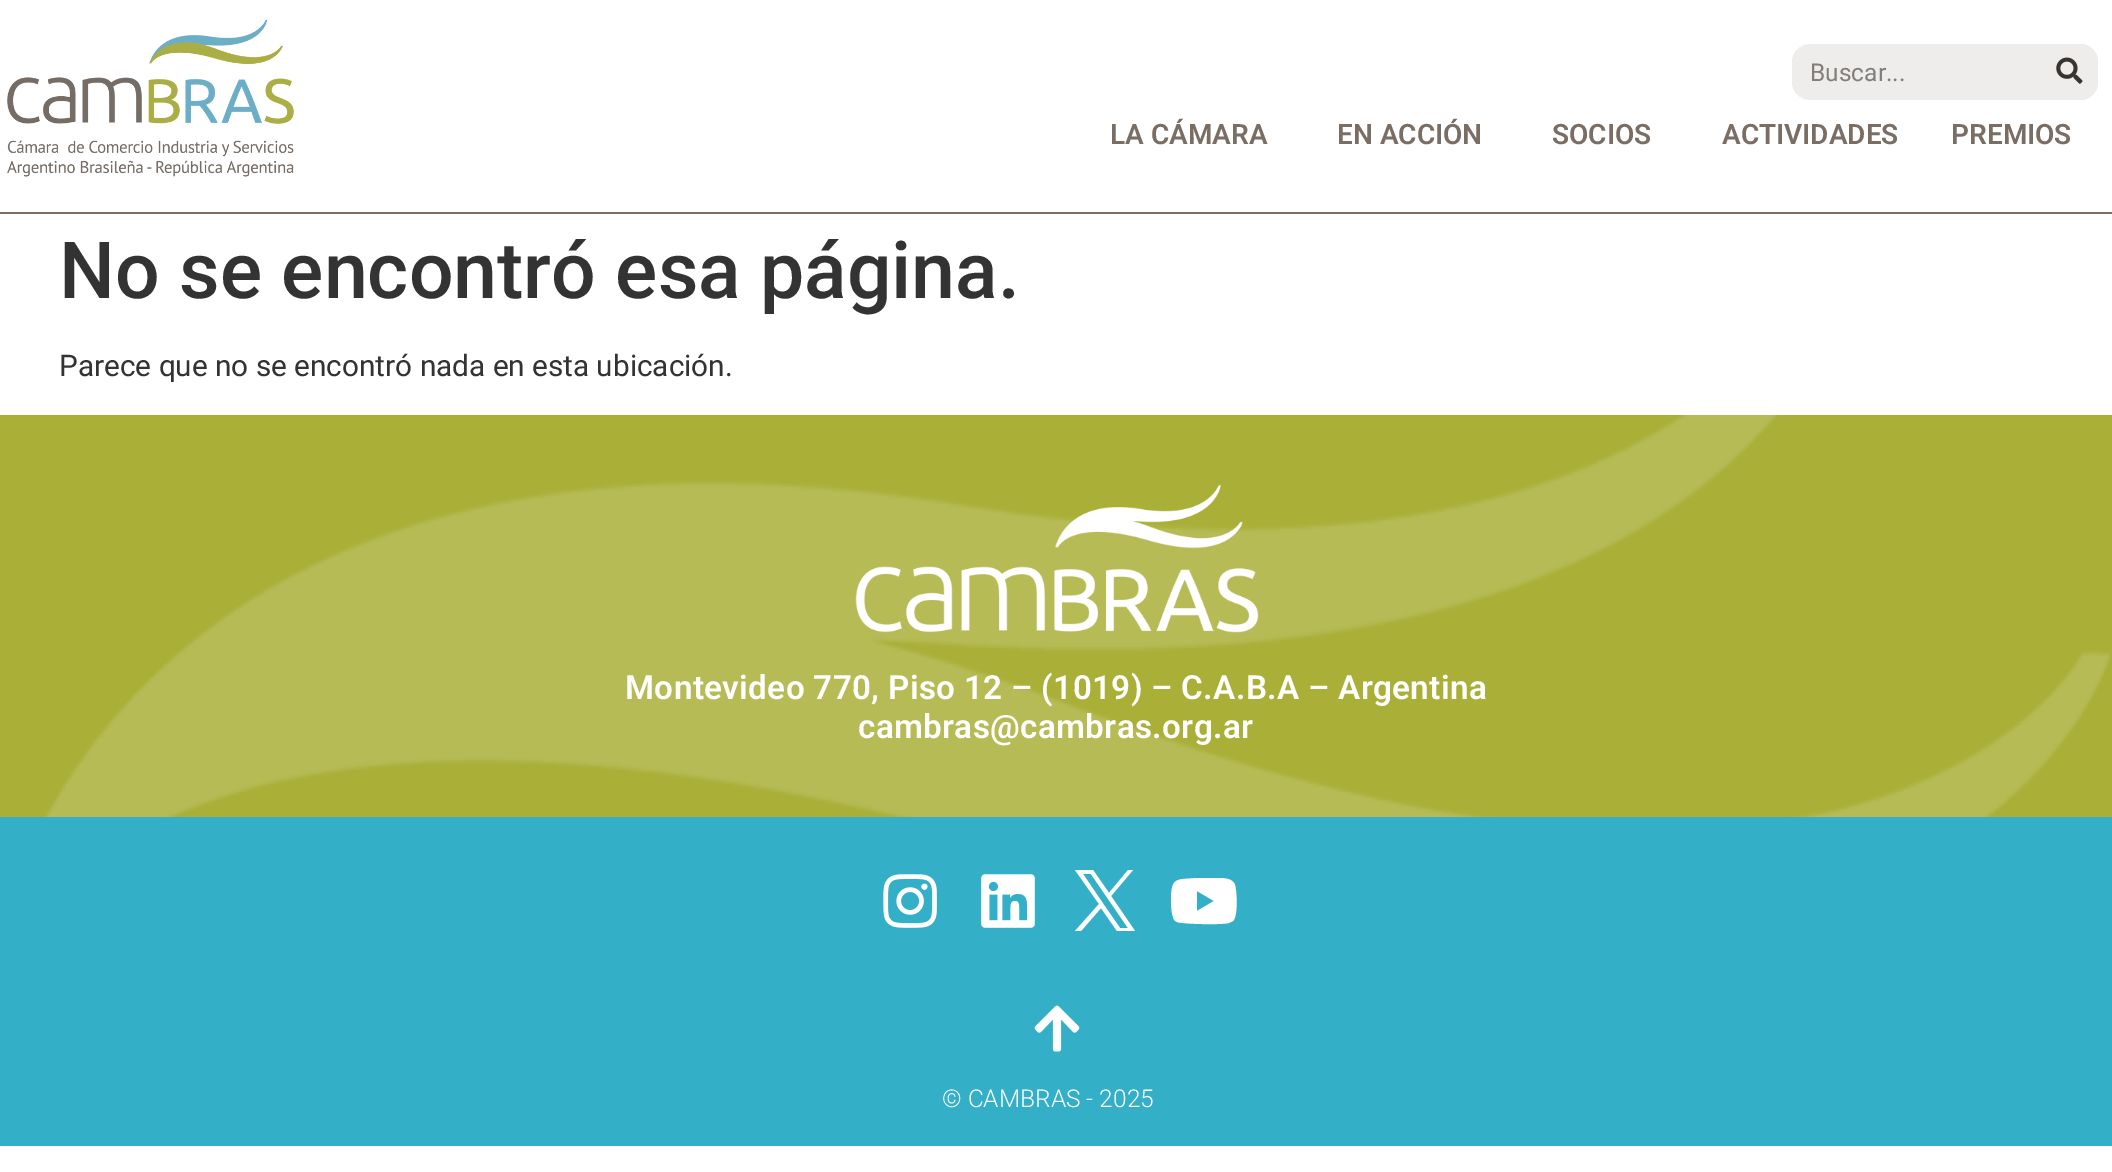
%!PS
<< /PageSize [2112 1172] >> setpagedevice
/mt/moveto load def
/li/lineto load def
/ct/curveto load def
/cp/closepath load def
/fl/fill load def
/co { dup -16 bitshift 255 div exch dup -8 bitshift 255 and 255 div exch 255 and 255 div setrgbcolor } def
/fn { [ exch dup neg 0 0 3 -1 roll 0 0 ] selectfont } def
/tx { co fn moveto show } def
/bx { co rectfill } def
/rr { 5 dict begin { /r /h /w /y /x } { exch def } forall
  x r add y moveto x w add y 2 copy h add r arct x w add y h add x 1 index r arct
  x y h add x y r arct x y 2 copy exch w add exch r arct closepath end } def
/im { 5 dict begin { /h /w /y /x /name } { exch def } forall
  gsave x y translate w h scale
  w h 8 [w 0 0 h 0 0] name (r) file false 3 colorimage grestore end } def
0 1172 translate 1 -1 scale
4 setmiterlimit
0 0 2112 1172 16#FFFFFF bx
0 212 2112 2 16#796D64 bx
(media/1.raw) 7 19 287 158 im
16#EEEDEB co
1792 44 306 56 18 rr fl
2042 44 mt 2080 44 li 2090 44 2098 52 2098 62 ct 2098 82 li 2098 92 2090 100 2080 100 ct 2042 100 li cp fl
(media/2.raw) 2056 57 27 27 im
0 415 2112 402 16#A9AF37 bx
(media/3.raw) 45 415 2066 402 im
(media/4.raw) 855 484 404 149 im
0 817 2112 329 16#33AFC7 bx
(media/5.raw) 883 874 54 54 im
(media/6.raw) 981 874 54 54 im
16#FFFFFF co
1111 896 mt 1133 870 li 1128 870 li 1109 893 li 1093 870 li 1075 870 li 1099 904 li 1075 931 li 1081 931 li 1101 908 li 1117 931 li 1135 931 li cp 1104 905 mt 1083 874 li 1091 874 li 1128 928 li 1120 928 li cp fl
1235 885 mt 1237 893 1238 916 1233 921 ct 1229 923 li 1221 925 1182 924 1177 922 ct 1175 921 1173 919 1173 917 ct 1171 911 1171 903 1171 896 ct 1172 886 1172 880 1183 879 ct 1197 878 li 1217 878 li 1223 878 1233 878 1235 885 ct cp 1197 911 mt 1214 901 li 1197 891 li cp fl
(media/7.raw) 1034 1005 46 47 im
(Buscar...) 1810 81 /Roboto-Regular 24.5 16#827E7B tx
(LA CÁMARA) 1110 144 /Roboto-SemiBold 28 16#796D64 tx
(EN ACCIÓN) 1337 144 /Roboto-SemiBold 28 16#796D64 tx
(SOCIOS) 1552 144 /Roboto-SemiBold 28 16#796D64 tx
(ACTIVIDADES) 1722 144 /Roboto-SemiBold 28 16#796D64 tx
(PREMIOS) 1951 144 /Roboto-SemiBold 28 16#796D64 tx
(No se encontró esa página.) 59 298 /Roboto-Medium 78.75 16#333333 tx
(Parece que no se encontró nada en esta ubicación.) 59 376 /Roboto-Regular 29.75 16#333333 tx
/Roboto-SemiBold 33.25 fn
16#FFFFFF co
625 699 mt .35 0 (Montevideo 770, Piso 12 – \(1019\) – C.A.B.A – Argentina) ashow
858 738 mt .35 0 (cambras@cambras.org.ar) ashow
(© CAMBRAS - 2025) 942 1107 /Roboto-Light 24.5 16#FFFFFF tx
showpage
